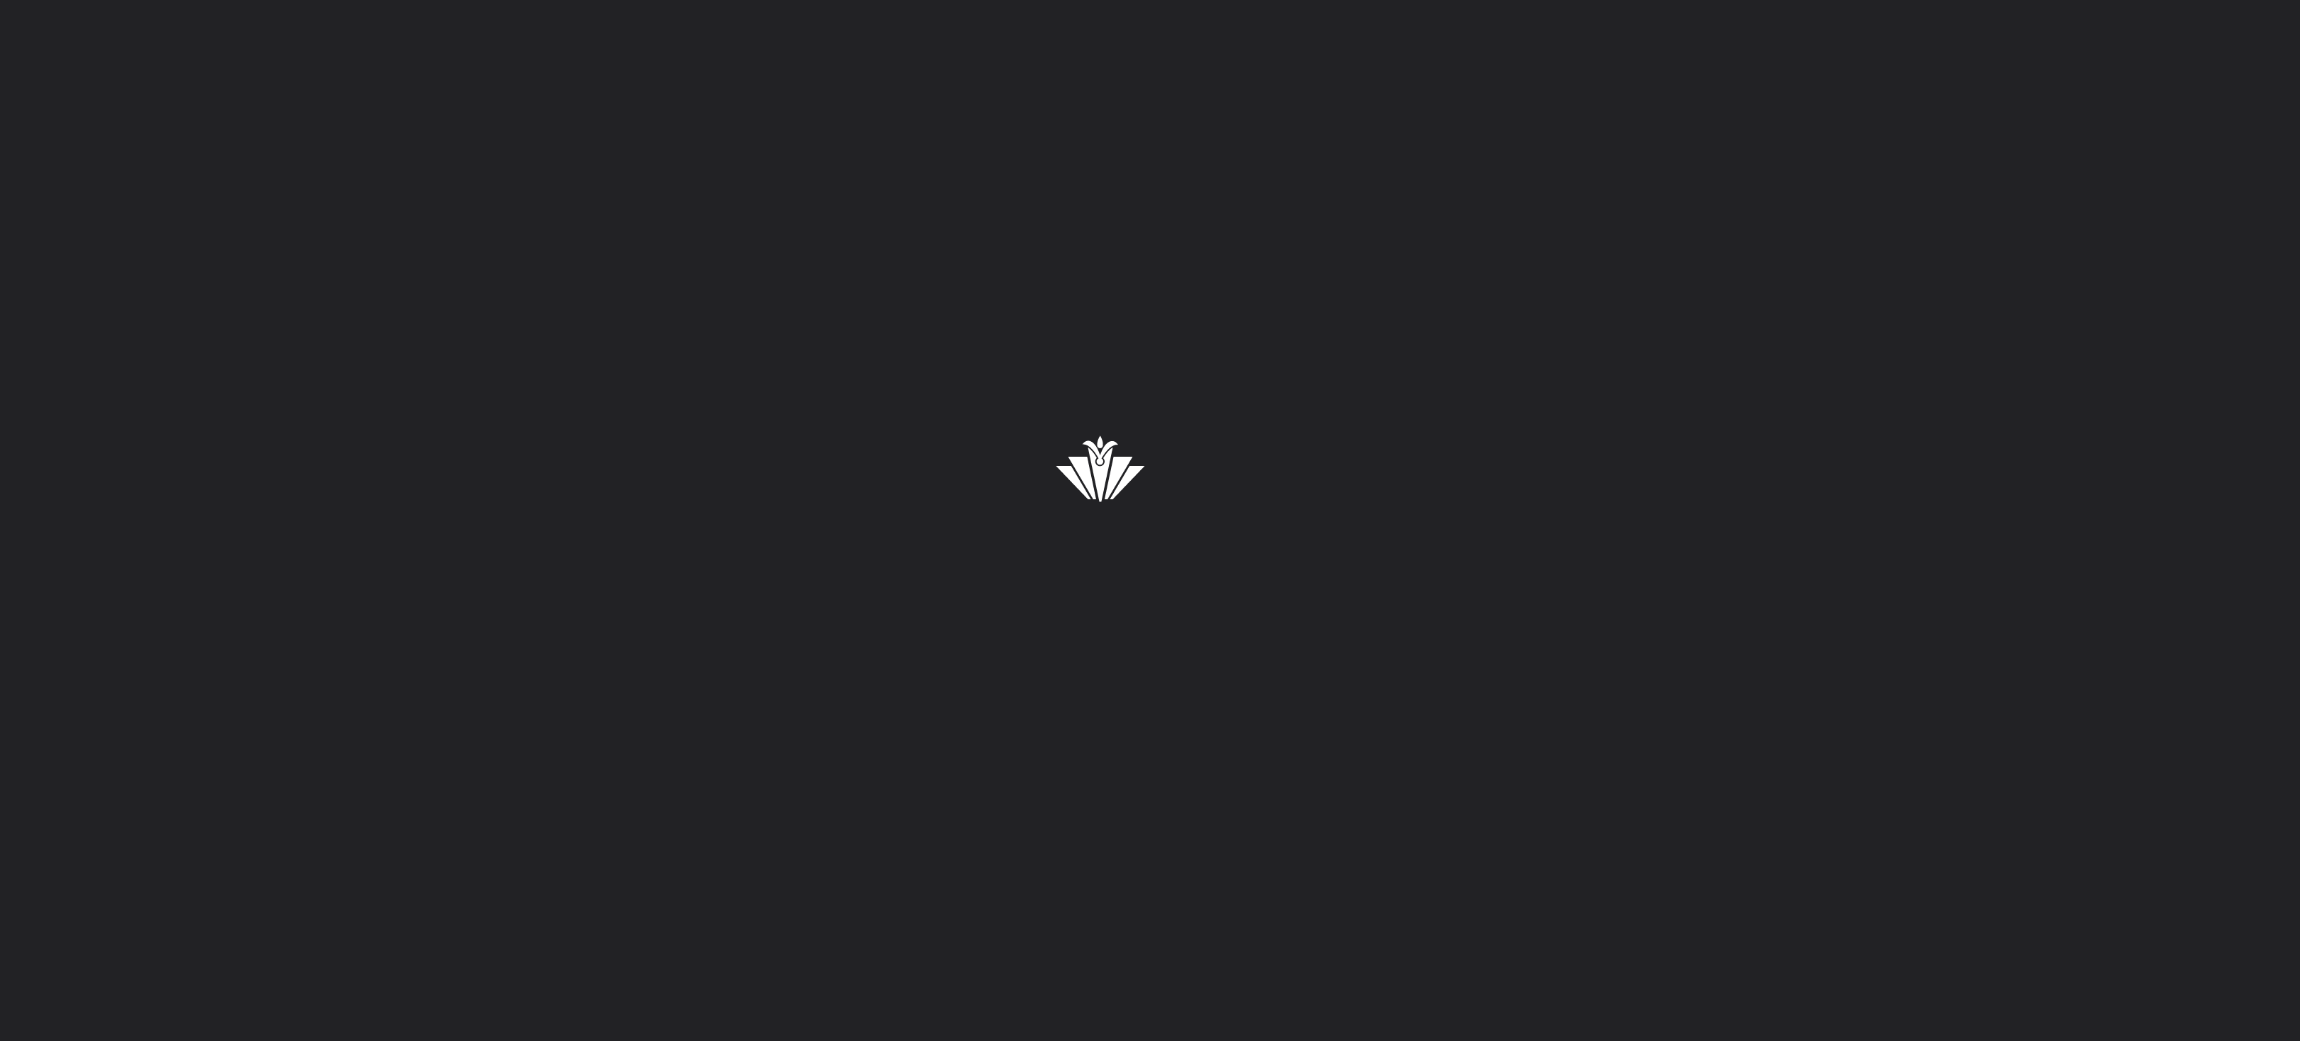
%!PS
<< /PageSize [2300 1041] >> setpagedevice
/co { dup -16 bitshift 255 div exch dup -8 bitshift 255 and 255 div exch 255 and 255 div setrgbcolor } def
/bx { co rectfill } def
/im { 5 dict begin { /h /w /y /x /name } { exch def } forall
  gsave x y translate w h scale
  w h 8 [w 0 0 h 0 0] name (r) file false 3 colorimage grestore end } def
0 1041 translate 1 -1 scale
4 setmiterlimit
0 0 2300 1041 16#222225 bx
(media/1.raw) 1055 435 90 67 im
showpage
